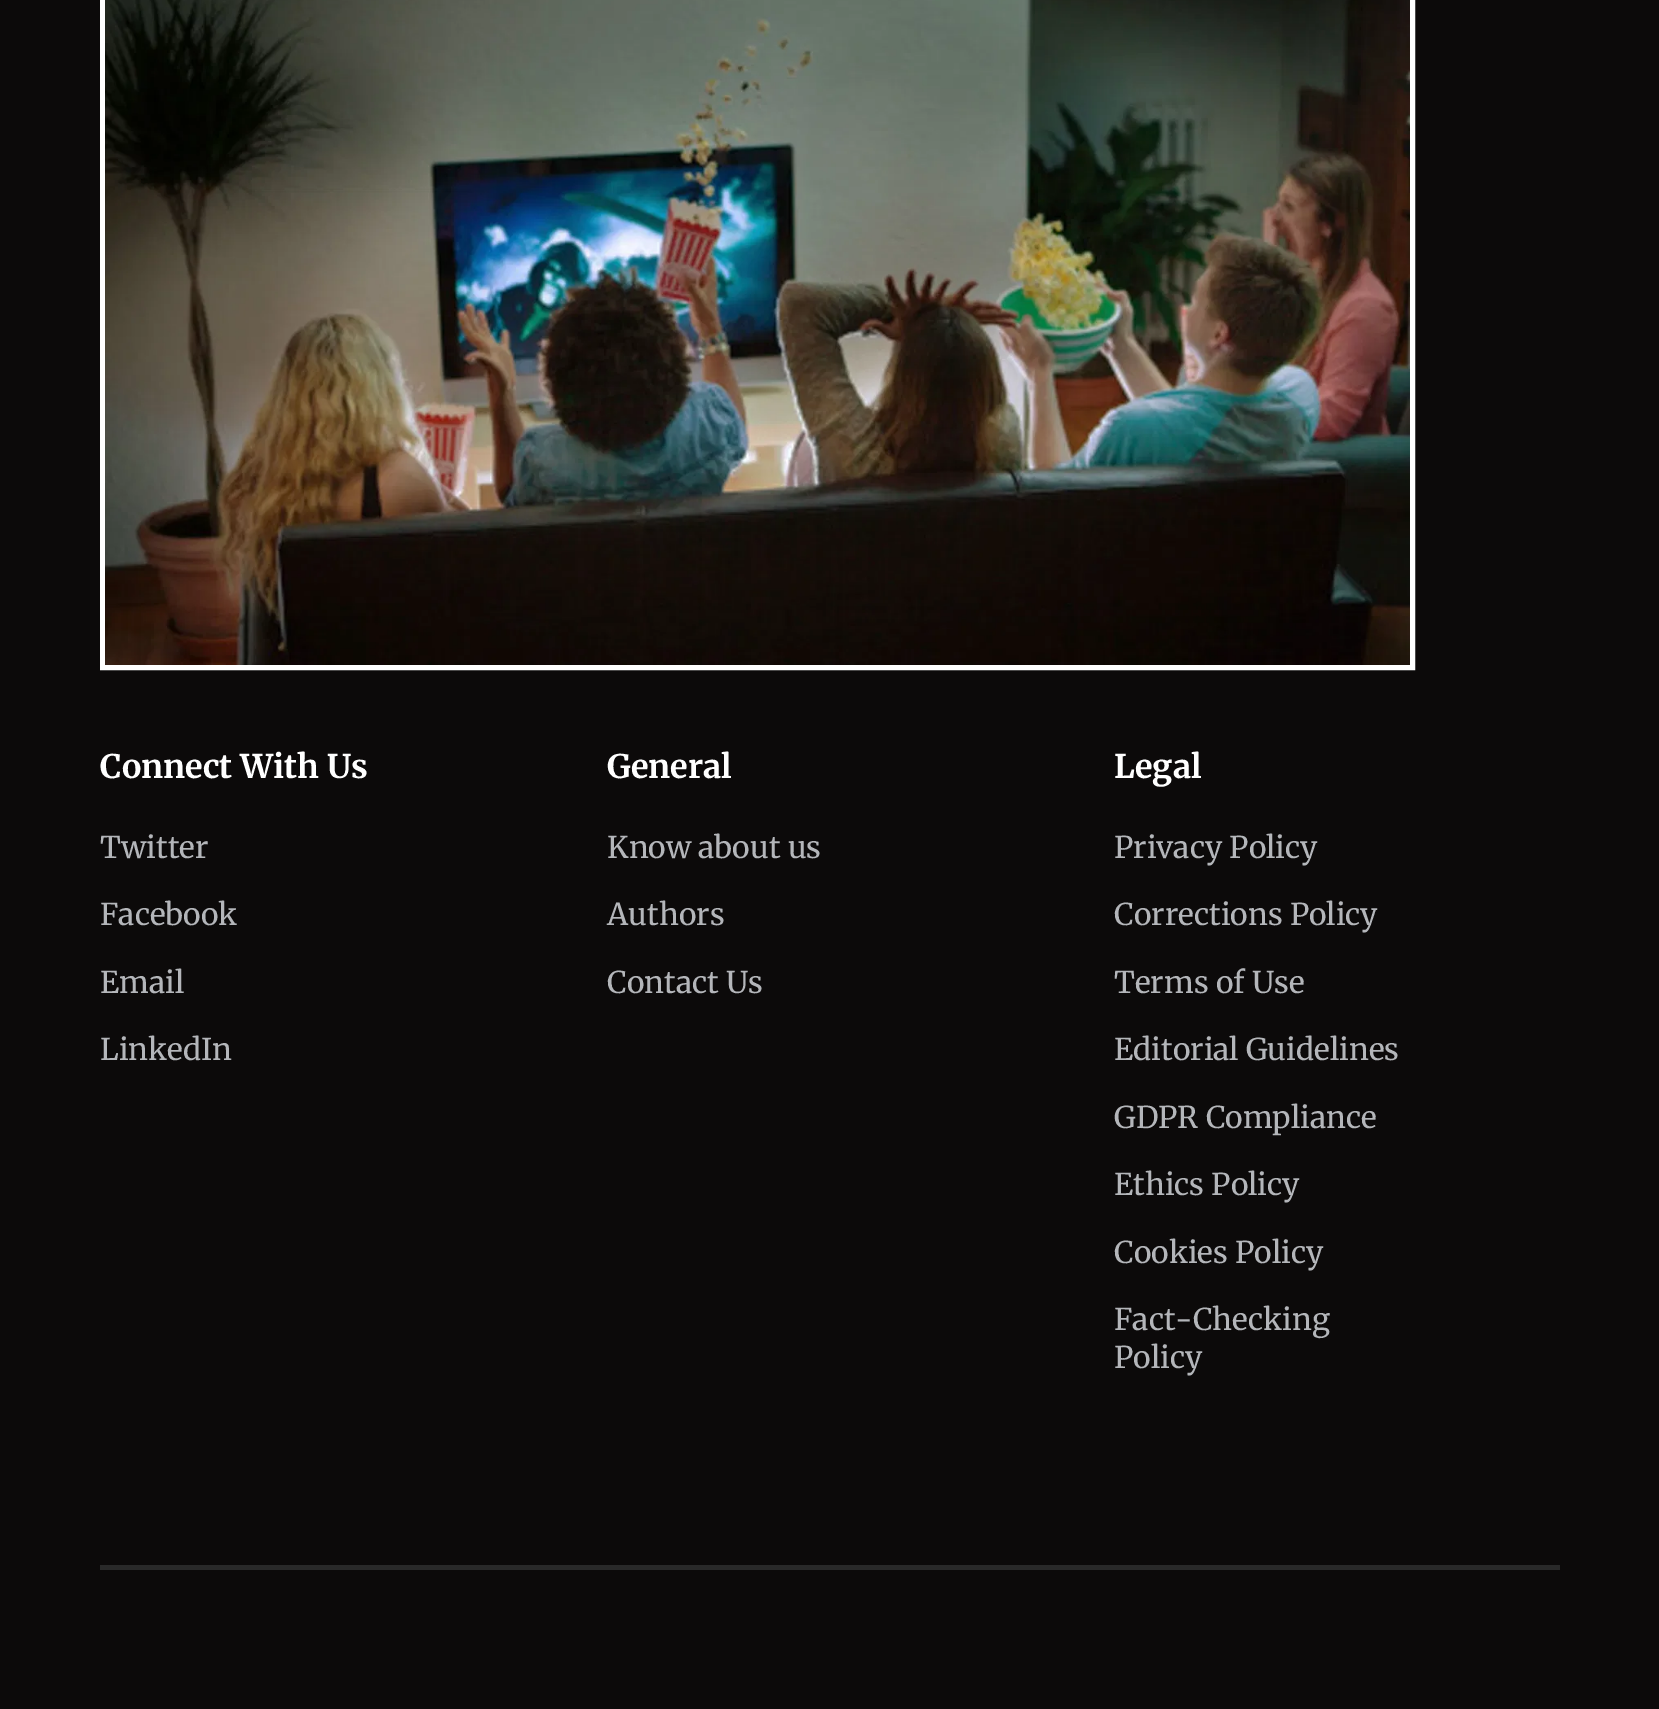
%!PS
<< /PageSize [1659 1709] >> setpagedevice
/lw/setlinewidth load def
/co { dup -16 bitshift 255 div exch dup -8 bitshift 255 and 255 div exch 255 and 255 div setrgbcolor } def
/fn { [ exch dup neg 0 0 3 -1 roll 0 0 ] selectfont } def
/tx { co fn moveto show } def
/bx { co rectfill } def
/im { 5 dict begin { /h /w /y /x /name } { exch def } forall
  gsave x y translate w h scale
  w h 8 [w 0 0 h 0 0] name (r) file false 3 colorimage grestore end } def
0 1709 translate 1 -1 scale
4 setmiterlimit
0 0 1659 1709 16#0C0A0A bx
16#FFFFFF co
5 lw
102.5 -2.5 1310 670 rectstroke
(media/1.raw) 105 0 1305 665 im
100 1565 1460 5 16#292929 bx
(Connect With Us) 100 778 /Merriweather-Bold 32.5 16#FFFFFF tx
(Twitter) 100 858 /Merriweather-Regular 30 16#B4B6BA tx
(Facebook) 100 925 /Merriweather-Regular 30 16#B4B6BA tx
(Email) 100 993 /Merriweather-Regular 30 16#B4B6BA tx
(LinkedIn) 100 1060 /Merriweather-Regular 30 16#B4B6BA tx
(General) 607 778 /Merriweather-Bold 32.5 16#FFFFFF tx
(Know about us) 607 858 /Merriweather-Regular 30 16#B4B6BA tx
(Authors) 607 925 /Merriweather-Regular 30 16#B4B6BA tx
(Contact Us) 607 993 /Merriweather-Regular 30 16#B4B6BA tx
(Legal) 1114 778 /Merriweather-Bold 32.5 16#FFFFFF tx
(Privacy Policy) 1114 858 /Merriweather-Regular 30 16#B4B6BA tx
(Corrections Policy) 1114 925 /Merriweather-Regular 30 16#B4B6BA tx
(Terms of Use) 1114 993 /Merriweather-Regular 30 16#B4B6BA tx
(Editorial Guidelines) 1114 1060 /Merriweather-Regular 30 16#B4B6BA tx
(GDPR Compliance) 1114 1128 /Merriweather-Regular 30 16#B4B6BA tx
(Ethics Policy) 1114 1195 /Merriweather-Regular 30 16#B4B6BA tx
(Cookies Policy) 1114 1263 /Merriweather-Regular 30 16#B4B6BA tx
(Fact-Checking) 1114 1330 /Merriweather-Regular 30 16#B4B6BA tx
(Policy) 1114 1368 /Merriweather-Regular 30 16#B4B6BA tx
showpage
